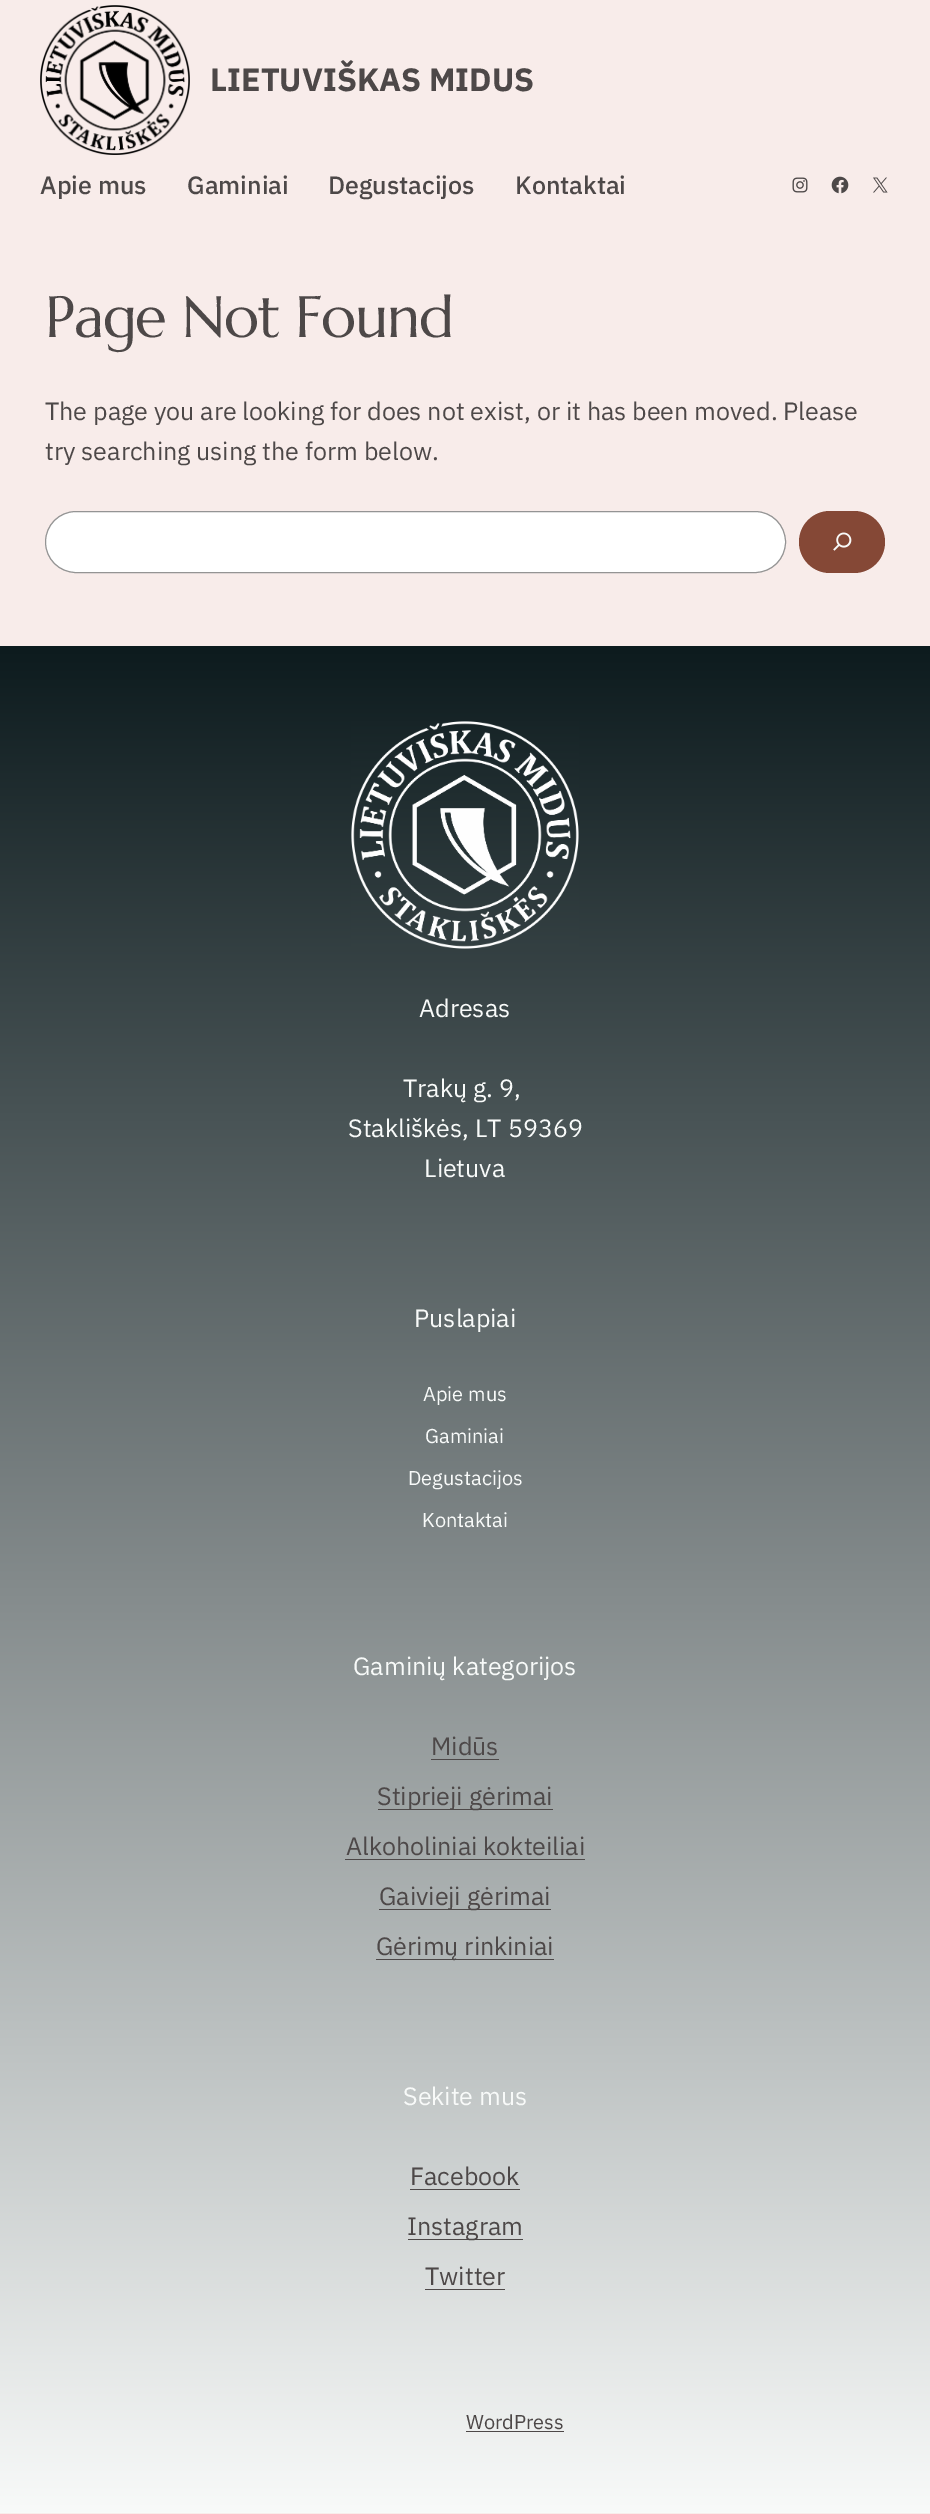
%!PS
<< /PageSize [930 2514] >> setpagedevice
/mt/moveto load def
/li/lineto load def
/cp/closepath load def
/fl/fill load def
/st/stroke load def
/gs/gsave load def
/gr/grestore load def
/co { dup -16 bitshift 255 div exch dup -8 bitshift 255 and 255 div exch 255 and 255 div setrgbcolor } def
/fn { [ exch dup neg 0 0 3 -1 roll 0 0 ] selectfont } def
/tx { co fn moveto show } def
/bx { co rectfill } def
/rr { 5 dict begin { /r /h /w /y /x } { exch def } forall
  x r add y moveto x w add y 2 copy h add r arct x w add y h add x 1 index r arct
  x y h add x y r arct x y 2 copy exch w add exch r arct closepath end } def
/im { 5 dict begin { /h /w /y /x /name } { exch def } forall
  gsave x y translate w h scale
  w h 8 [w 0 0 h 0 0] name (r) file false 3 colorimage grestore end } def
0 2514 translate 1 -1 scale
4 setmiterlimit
0 0 930 2514 16#F8ECEA bx
(media/1.raw) 40 5 150 150 im
(media/2.raw) 792 177 16 16 im
(media/3.raw) 831 176 18 18 im
(media/4.raw) 873 177 15 16 im
16#FFFFFF co
45.5 511.5 740 61 30.5 rr gs fl gr
16#949494 co
st
16#854836 co
799 511 86 62 31 rr fl
(media/5.raw) 833 532 19 19 im
gs 0 646 mt 930 646 li 930 2513 li 0 2513 li cp clip newpath
<< /ShadingType 2 /ColorSpace /DeviceRGB /Coords [465 646 465 2513] /Extend [true true] /Function << /FunctionType 2 /Domain [0 1] /C0 [.051 .106 .118] /C1 [.973 .98 .976] /N 1 >> >> shfill gr
(media/6.raw) 351 721 228 228 im
431 1759 68 1 16#4D4848 bx
378 1809 175 1 16#4D4848 bx
345 1859 240 1 16#4D4848 bx
379 1909 172 1 16#4D4848 bx
376 1959 178 1 16#4D4848 bx
410 2189 110 1 16#4D4848 bx
408 2239 115 1 16#4D4848 bx
425 2289 80 1 16#4D4848 bx
466 2431 98 1 16#4D4848 bx
(LIETUVIŠKAS MIDUS) 210 91 /IBMPlexSans-Bold 32.25 16#4D4848 tx
(Apie mus) 40 194 /IBMPlexSans-Medium 25 16#4D4848 tx
(Gaminiai) 187 194 /IBMPlexSans-Medium 25 16#4D4848 tx
(Degustacijos) 328 194 /IBMPlexSans-Medium 25 16#4D4848 tx
(Kontaktai) 515 194 /IBMPlexSans-Medium 25 16#4D4848 tx
/Marcellus-Regular 58.25 fn
45 337 mt -1.2 0 (Page Not Found) ashow
(The page you are looking for does not exist, or it has been moved. Please) 45 420 /IBMPlexSans-Regular 25 16#4D4848 tx
(try searching using the form below.) 45 460 /IBMPlexSans-Regular 25 16#4D4848 tx
(Adresas) 419 1017 /IBMPlexSans-Regular 25 16#F8FAF9 tx
(Trakų g. 9,) 403 1097 /IBMPlexSans-Regular 25 16#F8FAF9 tx
(Stakliškės, LT 59369) 348 1137 /IBMPlexSans-Regular 25 16#F8FAF9 tx
(Lietuva) 424 1177 /IBMPlexSans-Regular 25 16#F8FAF9 tx
(Puslapiai) 414 1327 /IBMPlexSans-Regular 25 16#F8FAF9 tx
(Apie mus) 423 1401 /IBMPlexSans-Regular 20 16#F8FAF9 tx
(Gaminiai) 425 1443 /IBMPlexSans-Regular 20 16#F8FAF9 tx
(Degustacijos) 408 1485 /IBMPlexSans-Regular 20 16#F8FAF9 tx
(Kontaktai) 422 1527 /IBMPlexSans-Regular 20 16#F8FAF9 tx
(Gaminių kategorijos) 353 1675 /IBMPlexSans-Regular 25 16#F8FAF9 tx
(Midūs) 431 1755 /IBMPlexSans-Regular 25 16#4D4848 tx
(Stiprieji gėrimai) 377 1805 /IBMPlexSans-Regular 25 16#4D4848 tx
(Alkoholiniai kokteiliai) 346 1855 /IBMPlexSans-Regular 25 16#4D4848 tx
(Gaivieji gėrimai) 379 1905 /IBMPlexSans-Regular 25 16#4D4848 tx
(Gėrimų rinkiniai) 376 1955 /IBMPlexSans-Regular 25 16#4D4848 tx
(Sekite mus) 403 2105 /IBMPlexSans-Regular 25 16#F8FAF9 tx
(Facebook) 410 2185 /IBMPlexSans-Regular 25 16#4D4848 tx
(Instagram) 407 2235 /IBMPlexSans-Regular 25 16#4D4848 tx
(Twitter) 425 2285 /IBMPlexSans-Regular 25 16#4D4848 tx
(WordPress) 466 2429 /IBMPlexSans-Regular 20 16#4D4848 tx
showpage
